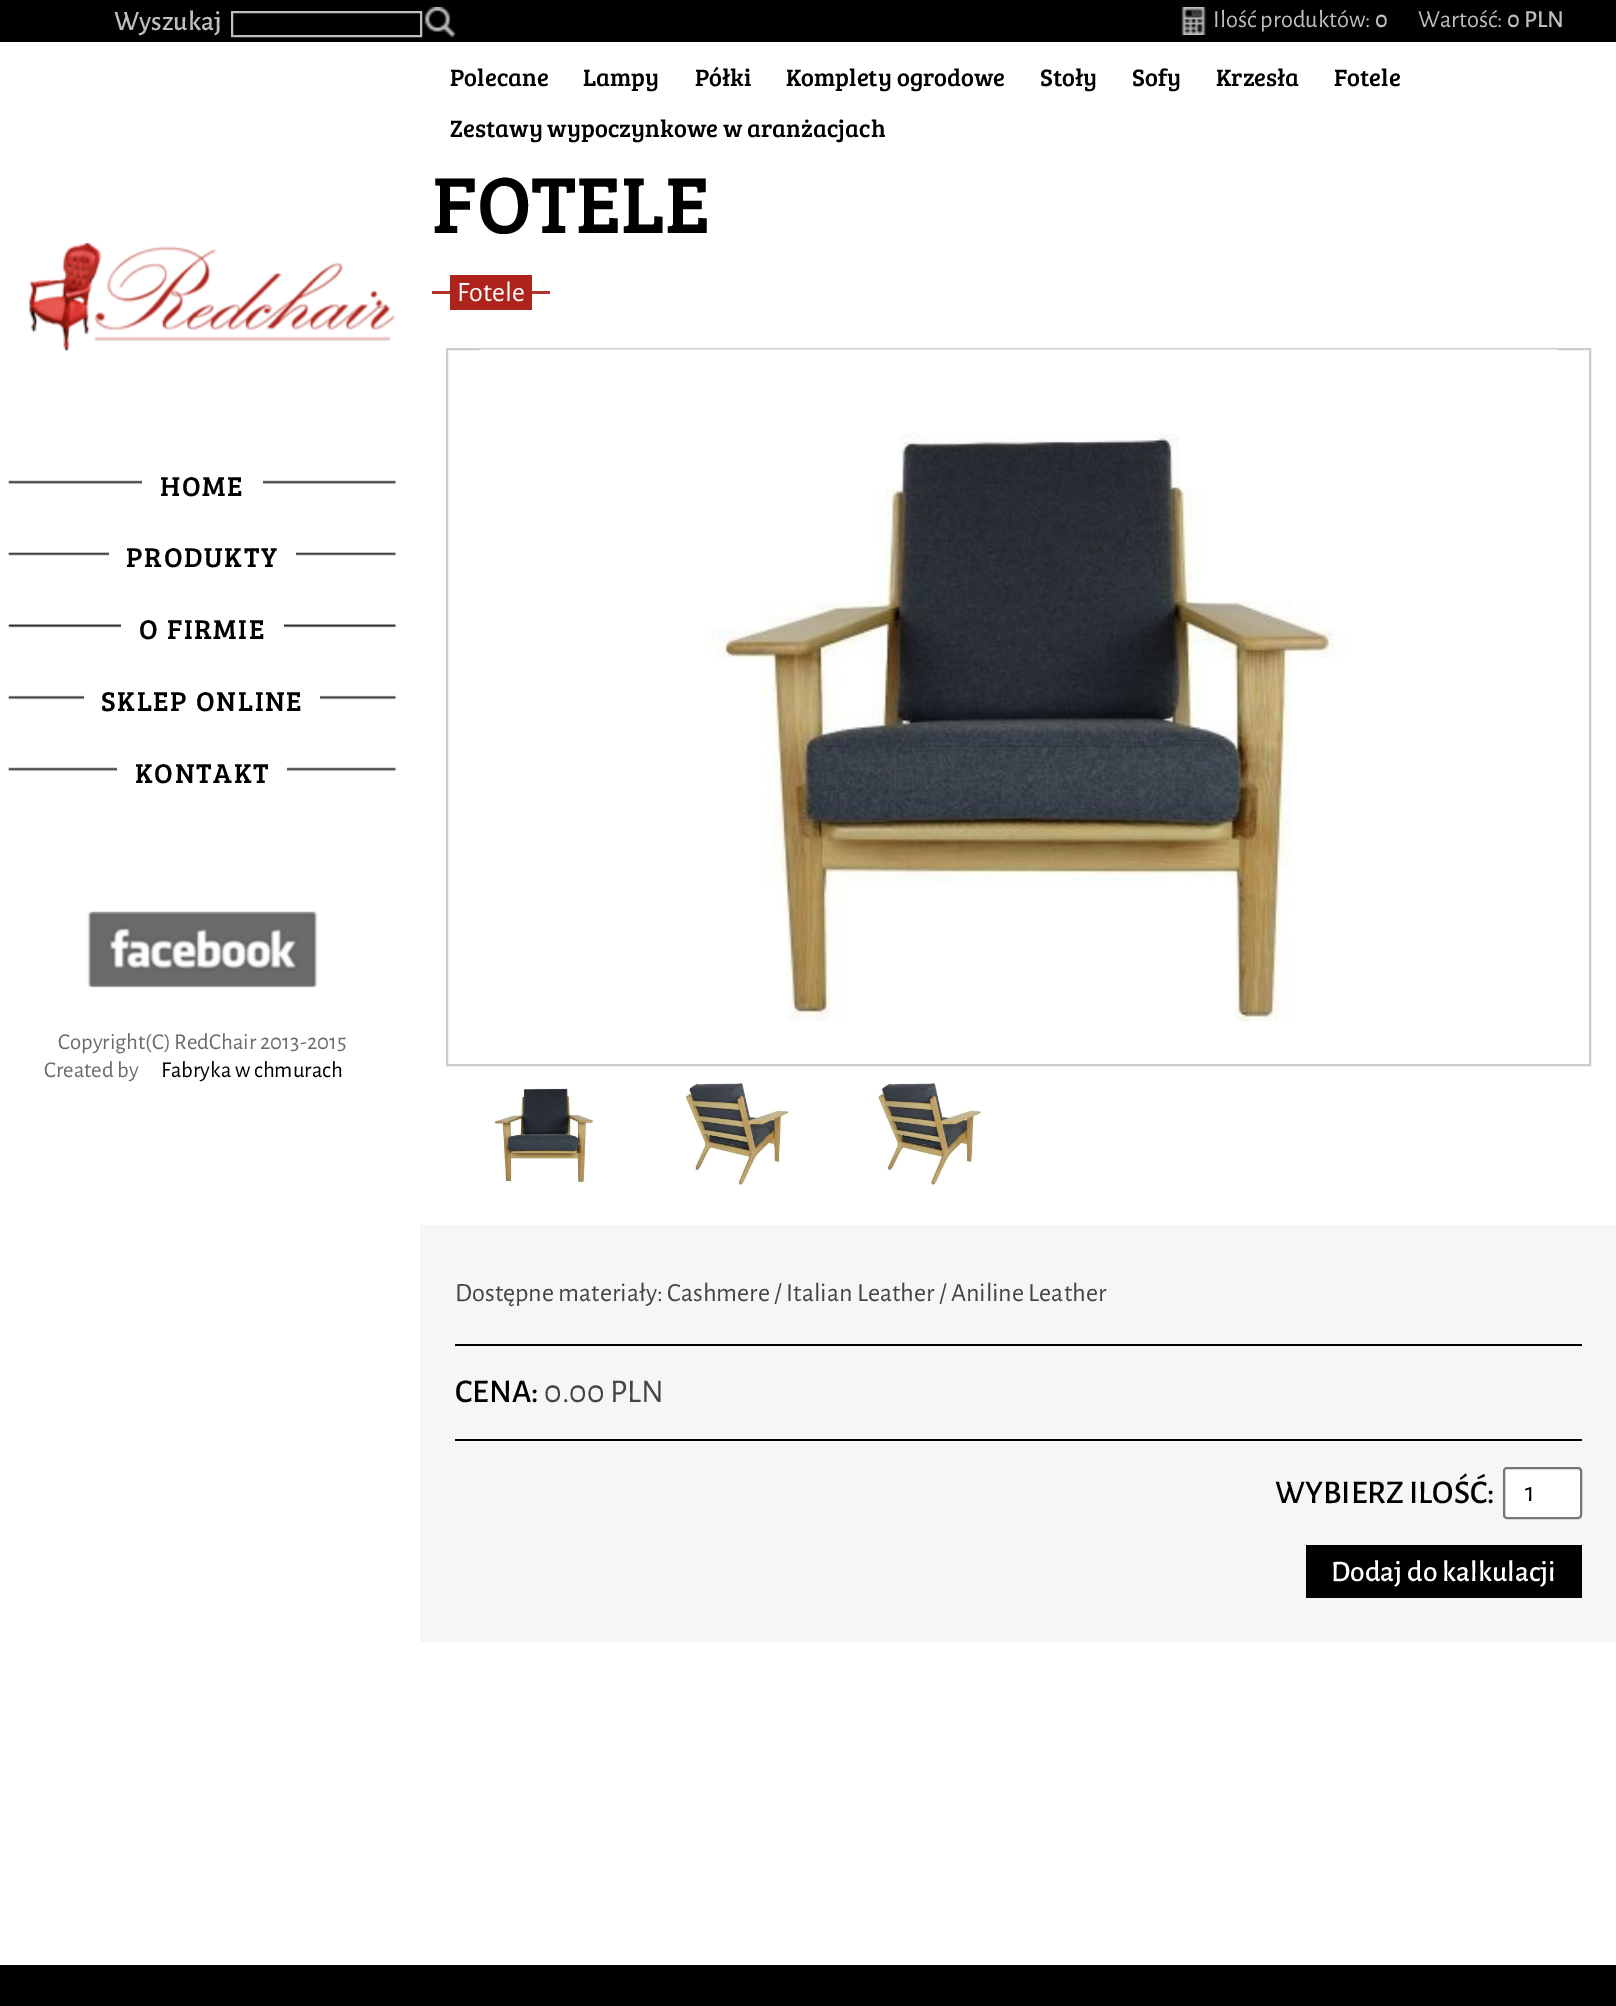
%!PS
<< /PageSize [1616 2006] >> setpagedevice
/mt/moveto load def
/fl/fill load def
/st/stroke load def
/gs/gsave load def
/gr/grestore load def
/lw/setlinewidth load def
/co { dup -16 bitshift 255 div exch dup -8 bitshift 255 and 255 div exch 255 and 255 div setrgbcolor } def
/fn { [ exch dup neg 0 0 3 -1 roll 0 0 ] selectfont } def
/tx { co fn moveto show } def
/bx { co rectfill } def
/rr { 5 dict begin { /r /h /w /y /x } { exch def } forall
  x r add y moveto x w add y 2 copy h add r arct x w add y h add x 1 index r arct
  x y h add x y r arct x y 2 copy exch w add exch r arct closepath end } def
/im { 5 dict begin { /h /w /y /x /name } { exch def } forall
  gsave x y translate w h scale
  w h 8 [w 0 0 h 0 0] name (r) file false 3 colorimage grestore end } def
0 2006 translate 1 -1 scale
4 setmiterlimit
0 0 1616 2006 16#FFFFFF bx
0 0 1616 42 16#000000 bx
16#BEBEBE co
2 lw
232 12 189 24 rectstroke
(media/1.raw) 424 7 32 30 im
(media/2.raw) 1181 7 26 28 im
(media/3.raw) 29 243 367 109 im
(media/4.raw) 8 480 388 5 im
142 480 121 5 16#FFFFFF bx
(media/5.raw) 8 552 388 4 im
109 552 187 4 16#FFFFFF bx
(media/6.raw) 8 624 388 4 im
121 624 163 4 16#FFFFFF bx
(media/7.raw) 8 695 388 5 im
84 695 236 5 16#FFFFFF bx
(media/4.raw) 8 767 388 5 im
117 767 170 5 16#FFFFFF bx
(media/8.raw) 87 911 231 77 im
432 291 118 3 16#B4342D bx
450 275 82 35 16#AE241D bx
16#CCCCCC co
447 349 1143 716 rectstroke
(media/9.raw) 479 349 1079 673 im
(media/10.raw) 492 1088 103 95 im
(media/11.raw) 684 1083 105 103 im
(media/12.raw) 876 1083 105 103 im
420 1225 1196 417 16#F6F6F6 bx
455 1344 1127 2 16#000000 bx
455 1439 1127 2 16#000000 bx
16#FFFFFF co
1504 1468 77 50 3 rr gs fl gr
16#767676 co
st
1306 1545 276 53 16#000000 bx
0 1965 1616 41 16#000000 bx
(Wyszukaj) 114 30 /AlegreyaSans-Medium 28 16#BEBEBE tx
(Ilość produktów:) 1213 27 /AlegreyaSans-Regular 24.5 16#BEBEBE tx
(0) 1375 27 /AlegreyaSans-Medium 24.5 16#BEBEBE tx
(Wartość:) 1418 27 /AlegreyaSans-Regular 24.5 16#BEBEBE tx
(0 PLN) 1507 27 /AlegreyaSans-Medium 24.5 16#BEBEBE tx
/BreeSerif-Regular 28 fn
16#000000 co
160 496 mt 1.75 0 (HOME) ashow
126 567 mt 1.75 0 (PRODUKTY) ashow
139 639 mt 1.75 0 (O FIRMIE) ashow
101 711 mt 1.75 0 (SKLEP ONLINE) ashow
135 783 mt 1.75 0 (KONTAKT) ashow
(Copyright\(C\) RedChair 2013-2015) 58 1049 /AlegreyaSans-Regular 22.75 16#6B6B6B tx
(Created by) 44 1077 /AlegreyaSans-Regular 22.75 16#6B6B6B tx
(Fabryka w chmurach) 161 1077 /AlegreyaSans-Regular 22.75 16#000000 tx
(Polecane) 450 86 /BreeSerif-Regular 24.5 16#000000 tx
(Lampy) 583 86 /BreeSerif-Regular 24.5 16#000000 tx
(Półki) 695 86 /BreeSerif-Regular 24.5 16#000000 tx
(Komplety ogrodowe) 786 86 /BreeSerif-Regular 24.5 16#000000 tx
(Stoły) 1040 86 /BreeSerif-Regular 24.5 16#000000 tx
(Sofy) 1132 86 /BreeSerif-Regular 24.5 16#000000 tx
(Krzesła) 1216 86 /BreeSerif-Regular 24.5 16#000000 tx
(Fotele) 1334 86 /BreeSerif-Regular 24.5 16#000000 tx
(Zestawy wypoczynkowe w aranżacjach) 450 137 /BreeSerif-Regular 24.5 16#000000 tx
(FOTELE) 432 233 /BreeSerif-Regular 82 16#000000 tx
(Fotele) 457 301 /AlegreyaSans-Regular 28 16#FFFFFF tx
(Dostępne materiały: Cashmere / Italian Leather / Aniline Leather) 455 1301 /AlegreyaSans-Regular 26.25 16#444444 tx
(CENA:) 455 1402 /AlegreyaSans-Medium 33.25 16#000000 tx
(0.00 PLN) 544 1402 /AlegreyaSans-Regular 33.25 16#444444 tx
(WYBIERZ ILOŚĆ:) 1275 1503 /AlegreyaSans-Medium 33.25 16#000000 tx
(1) 1525 1501 /AlegreyaSans-Regular 28 16#000000 tx
(Dodaj do kalkulacji) 1331 1581 /AlegreyaSans-Medium 29.75 16#FFFFFF tx
showpage
